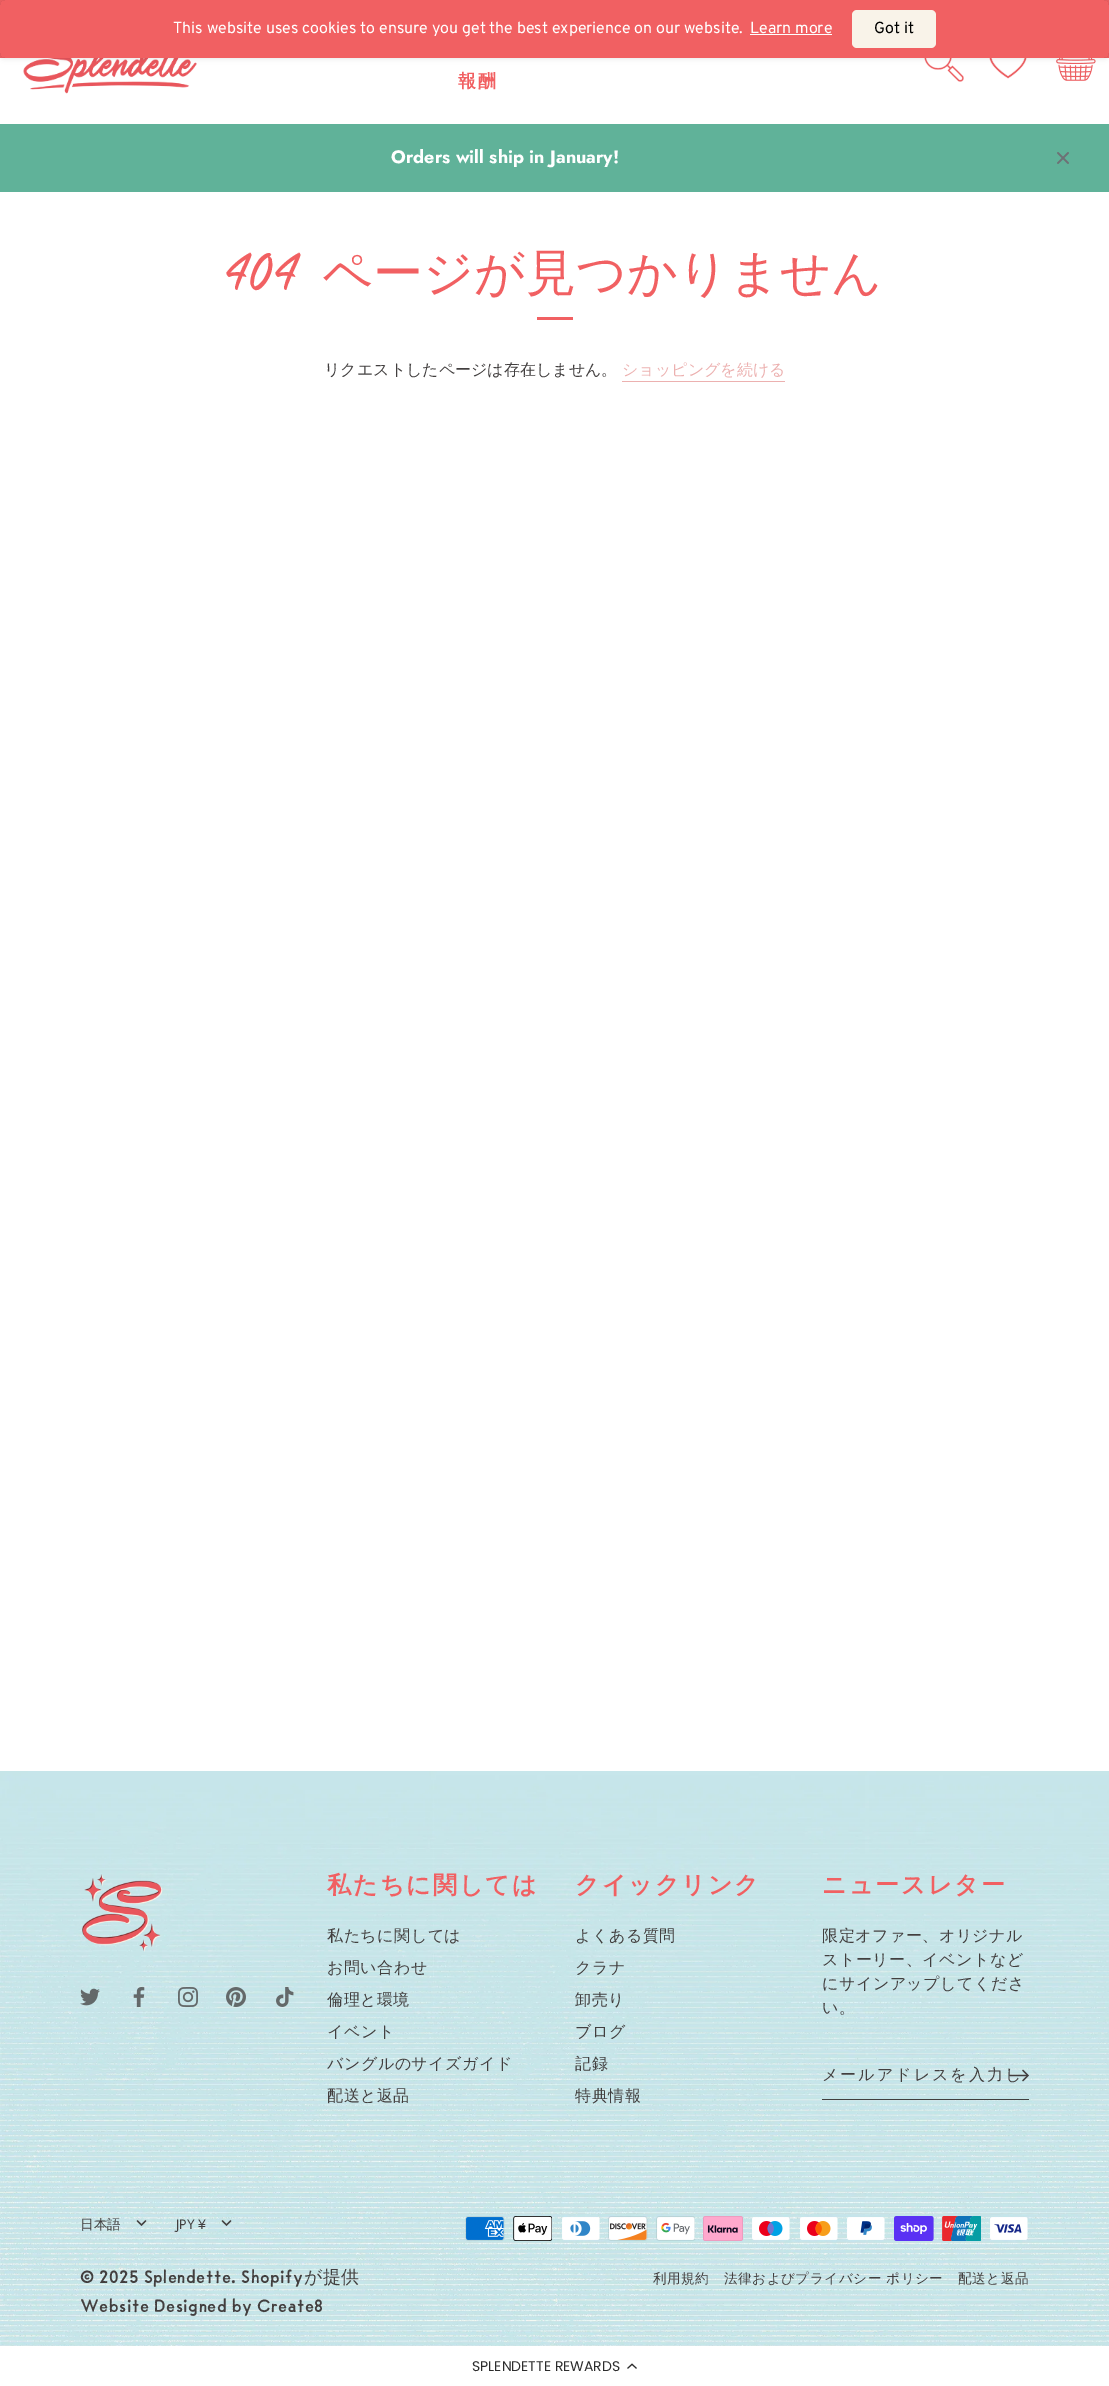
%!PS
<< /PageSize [1109 2386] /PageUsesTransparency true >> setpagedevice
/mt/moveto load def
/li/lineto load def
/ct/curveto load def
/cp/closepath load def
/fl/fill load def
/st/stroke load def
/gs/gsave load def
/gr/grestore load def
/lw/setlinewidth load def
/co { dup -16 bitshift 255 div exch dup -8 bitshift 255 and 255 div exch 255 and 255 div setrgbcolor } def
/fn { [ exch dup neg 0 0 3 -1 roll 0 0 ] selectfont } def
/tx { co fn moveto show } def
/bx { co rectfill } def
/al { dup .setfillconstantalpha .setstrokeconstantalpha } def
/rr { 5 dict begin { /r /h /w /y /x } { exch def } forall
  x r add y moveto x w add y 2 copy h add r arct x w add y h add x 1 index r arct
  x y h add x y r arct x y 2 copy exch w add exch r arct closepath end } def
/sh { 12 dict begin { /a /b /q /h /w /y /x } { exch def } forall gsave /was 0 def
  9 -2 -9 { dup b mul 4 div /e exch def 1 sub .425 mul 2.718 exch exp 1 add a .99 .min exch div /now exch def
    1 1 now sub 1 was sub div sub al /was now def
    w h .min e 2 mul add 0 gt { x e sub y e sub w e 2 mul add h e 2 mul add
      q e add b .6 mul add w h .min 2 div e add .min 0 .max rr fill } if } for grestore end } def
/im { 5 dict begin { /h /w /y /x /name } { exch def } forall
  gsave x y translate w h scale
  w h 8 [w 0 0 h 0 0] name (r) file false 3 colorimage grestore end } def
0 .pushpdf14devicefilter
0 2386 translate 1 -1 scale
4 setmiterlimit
0 0 1109 2386 16#FFFFFF bx
0 0 1109 58 16#F16062 bx
(media/1.raw) 23 58 174 36 im
(media/2.raw) 924 58 40 24 im
(media/3.raw) 989 58 38 21 im
(media/4.raw) 1056 58 40 23 im
gs
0 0 mt 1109 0 li 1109 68 li 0 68 li cp 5 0 mt 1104 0 li 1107 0 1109 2 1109 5 ct 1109 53 li 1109 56 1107 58 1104 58 ct 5 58 li 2 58 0 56 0 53 ct 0 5 li 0 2 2 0 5 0 ct cp eoclip newpath
16#000000 co
0 0 1109 58 5 3 .12 sh
gr
750 34 82 1 16#FFFFFF bx
16#F9F3E9 co
852 10 84 38 5 rr fl
0 124 1109 68 16#60B299 bx
(media/5.raw) 1057 152 12 12 im
537 317 36 3 16#F16062 bx
622 381 163 1 16#ECB1B0 bx
(media/6.raw) 0 1771 1109 575 im
(media/7.raw) 82 1874 81 78 im
(media/8.raw) 80 1988 20 18 im
(media/9.raw) 133 1987 12 20 im
(media/10.raw) 178 1987 20 20 im
(media/11.raw) 226 1987 20 20 im
(media/12.raw) 276 1987 18 20 im
822 2099 207 1 16#423F3F bx
1.3 lw
1 setlinecap
1023 2080.5 mt 1028 2075.5 li 1023 2070.5 li st
1 setlinejoin
1027 2075.5 mt 1010 2075.5 li st
1.4 lw
0 setlinejoin
137.5 2221 mt 141.5 2225 li 145.5 2221 li st
222.5 2221 mt 226.5 2225 li 230.5 2221 li st
(media/13.raw) 465 2216 40 25 im
(media/14.raw) 513 2216 39 25 im
(media/15.raw) 562 2217 38 23 im
(media/16.raw) 608 2216 40 25 im
(media/17.raw) 656 2216 39 25 im
(media/18.raw) 703 2216 40 25 im
(media/19.raw) 752 2217 38 23 im
(media/20.raw) 800 2217 38 23 im
(media/21.raw) 847 2217 38 23 im
(media/22.raw) 894 2216 40 25 im
(media/23.raw) 942 2216 39 25 im
(media/24.raw) 990 2217 38 23 im
(media/25.raw) 627 2363 10 6 im
(This website uses cookies to ensure you get the best experience on our website.) 173 33 /Overpass-Regular 16 16#FFFFFF tx
(Learn more) 750 33 /Overpass-Regular 16 16#FFFFFF tx
(Got it) 874 33 /Overpass-Regular 16 16#000000 tx
/WenQuanYiZenHei-Bold 18 fn
16#F16062 co
458 87 mt 2 0 (報酬) ashow
(Orders will ship in January!) 391 163 /Jost-Bold 18 16#FFFFFF tx
(404) 226 290 /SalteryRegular-Regular 50 16#F16062 tx
(ページが見つかりません) 322 290 /WenQuanYiZenHei-Medium 50 16#F16062 tx
(リクエストしたページは存在しません。) 324 375 /WenQuanYiZenHei-Medium 16 16#423F3F tx
(ショッピングを続ける) 622 375 /WenQuanYiZenHei-Medium 16 16#ECB1B0 tx
/WenQuanYiZenHei-Bold 24 fn
16#F16062 co
327 1893 mt 2 0 (私たちに関しては) ashow
/WenQuanYiZenHei-Medium 16 fn
16#423F3F co
327 1941 mt .5 0 (私たちに関しては) ashow
327 1973 mt .5 0 (お問い合わせ) ashow
327 2005 mt .5 0 (倫理と環境) ashow
327 2037 mt .5 0 (イベント) ashow
327 2069 mt .5 0 (バングルのサイズガイド) ashow
327 2101 mt .5 0 (配送と返品) ashow
/WenQuanYiZenHei-Bold 24 fn
16#F16062 co
575 1893 mt 2 0 (クイックリンク) ashow
/WenQuanYiZenHei-Medium 16 fn
16#423F3F co
575 1941 mt .5 0 (よくある質問) ashow
575 1973 mt .5 0 (クラナ) ashow
575 2005 mt .5 0 (卸売り) ashow
575 2037 mt .5 0 (ブログ) ashow
575 2069 mt .5 0 (記録) ashow
575 2101 mt .5 0 (特典情報) ashow
/WenQuanYiZenHei-Bold 24 fn
16#F16062 co
822 1893 mt 2 0 (ニュースレター) ashow
/WenQuanYiZenHei-Medium 16 fn
16#423F3F co
822 1941 mt .5 0 (限定オファー、オリジナル) ashow
822 1965 mt .5 0 (ストーリー、イベントなど) ashow
822 1989 mt .5 0 (にサインアップしてくださ) ashow
822 2013 mt .5 0 (い。) ashow
822 2080 mt 2 0 (メールアドレスを入力し) ashow
(日本語) 80 2229 /WenQuanYiZenHei-Medium 13.6 16#423F3F tx
(JPY ¥) 176 2229 /Jost-Regular 13.6 16#423F3F tx
/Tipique-Regular 18 fn
80 2283 mt .5 0 (© 2025 Splendette. Shopify) ashow
/WenQuanYiZenHei-Medium 18 fn
304 2283 mt .5 0 (が提供) ashow
/Tipique-Regular 18 fn
80 2312 mt .5 0 (Website Designed by Create8) ashow
/WenQuanYiZenHei-Medium 13.6 fn
653 2283 mt .5 0 (利用規約) ashow
724 2283 mt .5 0 (法律およびプライバシー ポリシー) ashow
958 2283 mt .5 0 (配送と返品) ashow
(SPLENDETTE REWARDS) 472 2371 /Poppins-Regular 14 16#2C2C2C tx
.poppdf14devicefilter showpage
